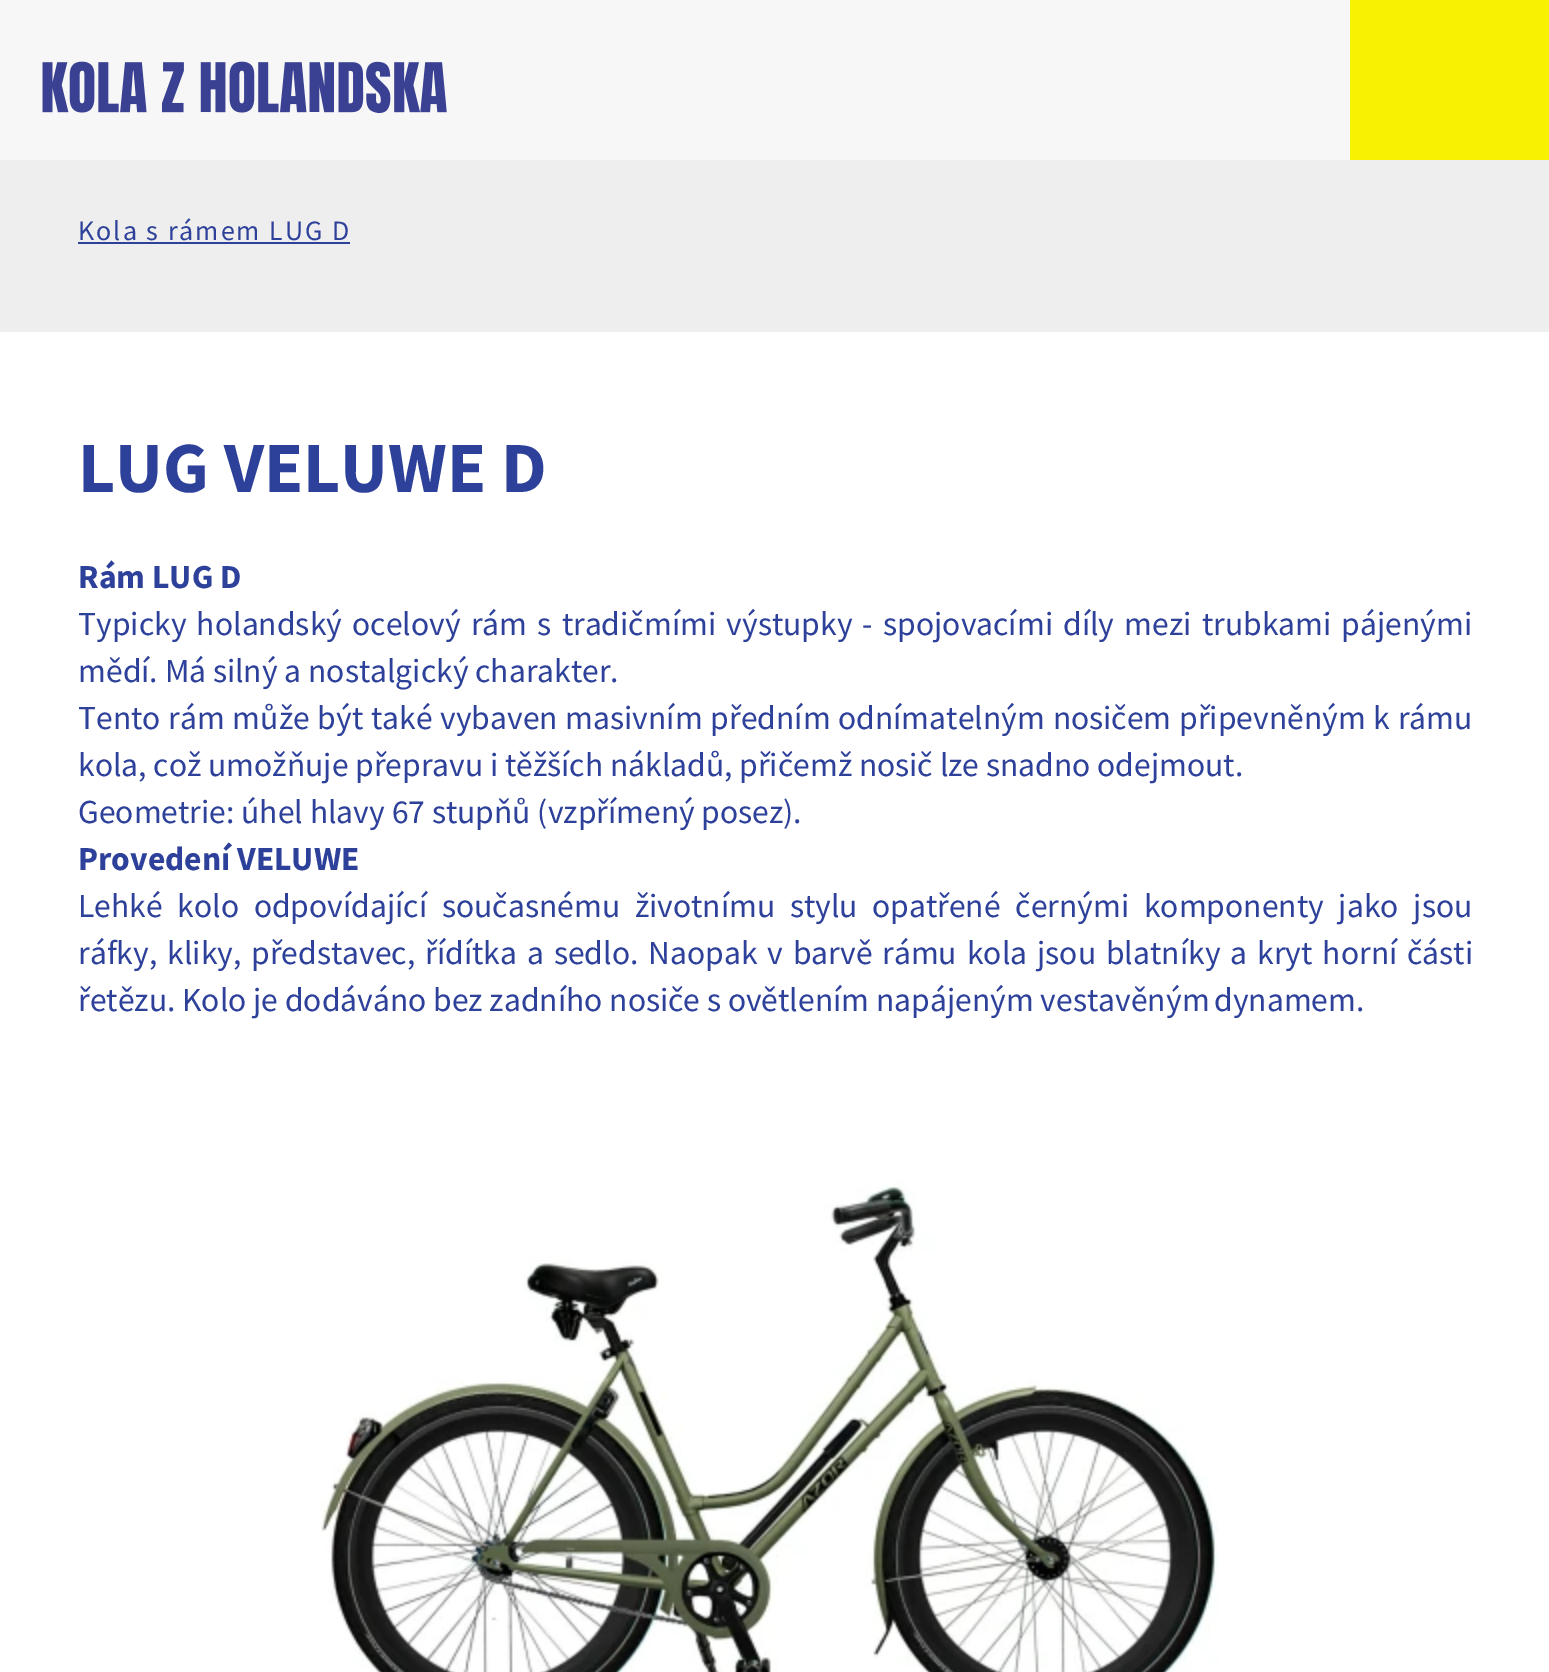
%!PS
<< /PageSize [1549 1672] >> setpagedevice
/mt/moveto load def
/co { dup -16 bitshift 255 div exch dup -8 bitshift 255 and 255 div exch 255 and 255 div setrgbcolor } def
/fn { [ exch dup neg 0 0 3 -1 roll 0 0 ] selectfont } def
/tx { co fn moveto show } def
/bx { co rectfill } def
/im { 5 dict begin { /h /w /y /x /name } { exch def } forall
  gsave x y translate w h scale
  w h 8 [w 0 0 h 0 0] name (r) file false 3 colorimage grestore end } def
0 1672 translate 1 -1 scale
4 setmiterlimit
0 0 1549 1672 16#FFFFFF bx
0 0 1350 160 16#F7F7F7 bx
(media/1.raw) 42 61 405 53 im
1350 0 199 160 16#F6F200 bx
0 160 1549 172 16#EEEEEE bx
78 242 272 2 16#2E419A bx
(media/2.raw) 321 1181 898 491 im
/SourceSansPro-Regular 28 fn
78 240 mt 2 0 (Kola s rámem LUG D) ashow
(LUG VELUWE D) 78 492 /SourceSansPro-Bold 72 16#2E419A tx
(Rám LUG D) 78 588 /SourceSansPro-Bold 33.6 16#2E419A tx
/SourceSansPro-Regular 33.6 fn
78 635 mt 3.5 0 32 (Typicky holandský) widthshow
352 635 mt 3.5 0 32 (ocelový rám s tradičmími výstupky - spojovacími) widthshow
1063 635 mt 3.5 0 32 (díly mezi trubkami pájenými) widthshow
(mědí. Má silný a nostalgický charakter.) 78 682 /SourceSansPro-Regular 33.6 16#2E419A tx
78 729 mt 1 0 32 (Tento rám může být také vybaven masivním předním) widthshow
838 729 mt 1 0 32 (odnímatelným nosičem připevněným k rámu) widthshow
(kola, což umožňuje přepravu i těžších nákladů, přičemž nosič lze snadno odejmout.) 78 776 /SourceSansPro-Regular 33.6 16#2E419A tx
(Geometrie: úhel hlavy 67 stupňů \(vzpřímený posez\).) 78 823 /SourceSansPro-Regular 33.6 16#2E419A tx
(Provedení VELUWE) 78 870 /SourceSansPro-Bold 33.6 16#2E419A tx
/SourceSansPro-Regular 33.6 fn
78 917 mt 8 0 32 (Lehké kolo odpovídající současnému životnímu stylu) widthshow
872 917 mt 8 0 32 (opatřené černými komponenty jako jsou) widthshow
78 964 mt 3.25 0 32 (ráfky, kliky,) widthshow
251 964 mt 3.25 0 32 (představec, řídítka a sedlo. Naopak v barvě) widthshow
882 964 mt 3.25 0 32 (rámu kola jsou blatníky a kryt horní části) widthshow
(řetězu. Kolo je dodáváno bez zadního nosiče s ovětlením napájeným vestavěným) 78 1011 /SourceSansPro-Regular 33.6 16#2E419A tx
(dynamem.) 1214 1011 /SourceSansPro-Regular 33.6 16#2E419A tx
showpage
